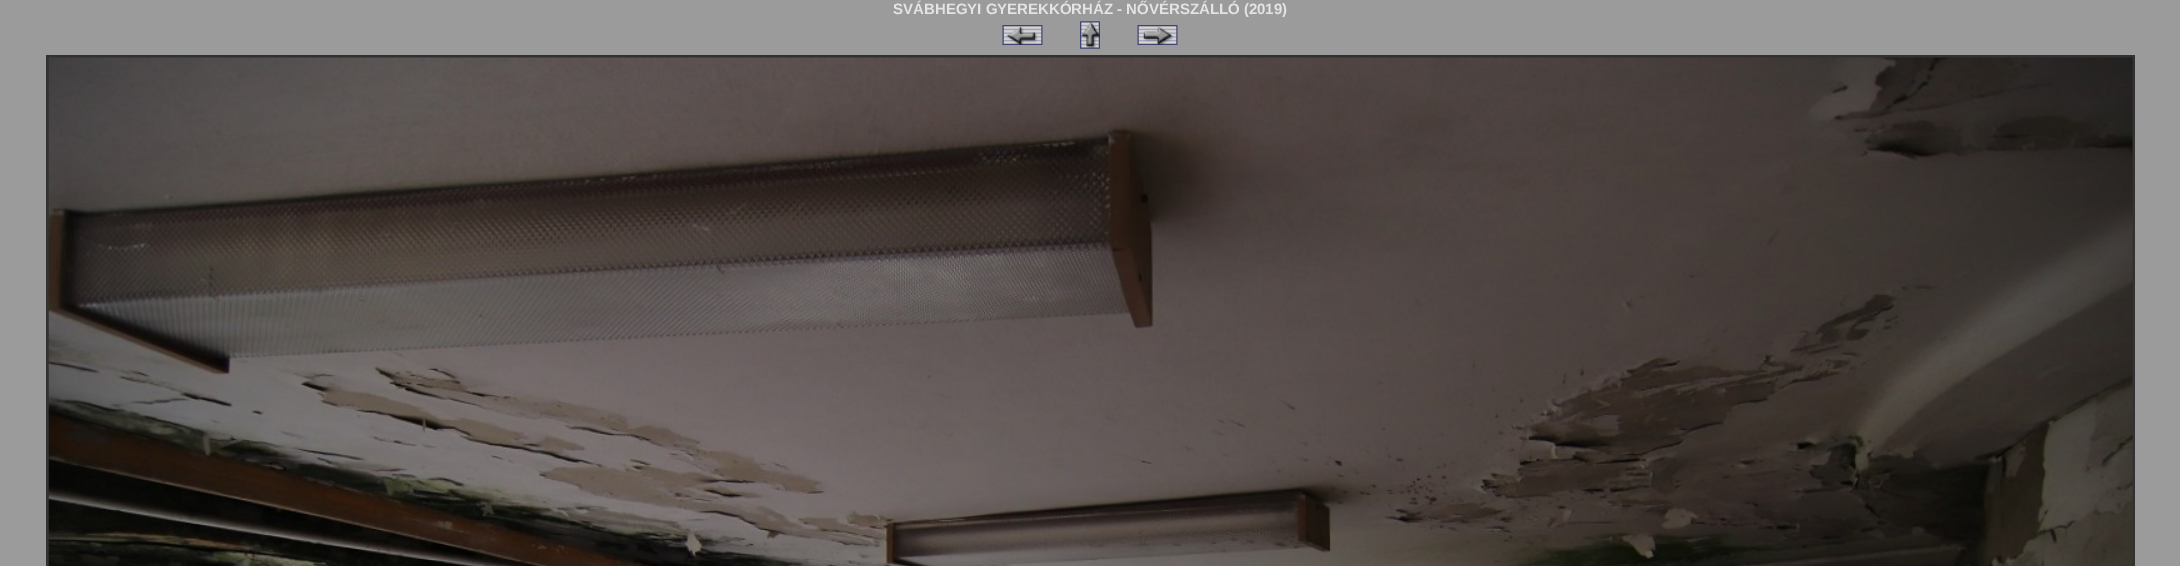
%!PS
<< /PageSize [2180 566] >> setpagedevice
/co { dup -16 bitshift 255 div exch dup -8 bitshift 255 and 255 div exch 255 and 255 div setrgbcolor } def
/fn { [ exch dup neg 0 0 3 -1 roll 0 0 ] selectfont } def
/tx { co fn moveto show } def
/bx { co rectfill } def
/im { 5 dict begin { /h /w /y /x /name } { exch def } forall
  gsave x y translate w h scale
  w h 8 [w 0 0 h 0 0] name (r) file false 3 colorimage grestore end } def
0 566 translate 1 -1 scale
4 setmiterlimit
0 0 2180 566 16#9B9B9B bx
(media/1.raw) 1002 25 41 20 im
(media/2.raw) 1080 21 20 28 im
(media/3.raw) 1137 25 41 20 im
46 55 2089 511 16#313131 bx
(media/4.raw) 48 57 2085 509 im
(SVÁBHEGYI GYEREKKÓRHÁZ - NŐVÉRSZÁLLÓ \(2019\)) 893 14 /LiberationSans-Bold 15 16#E4E4E4 tx
showpage
